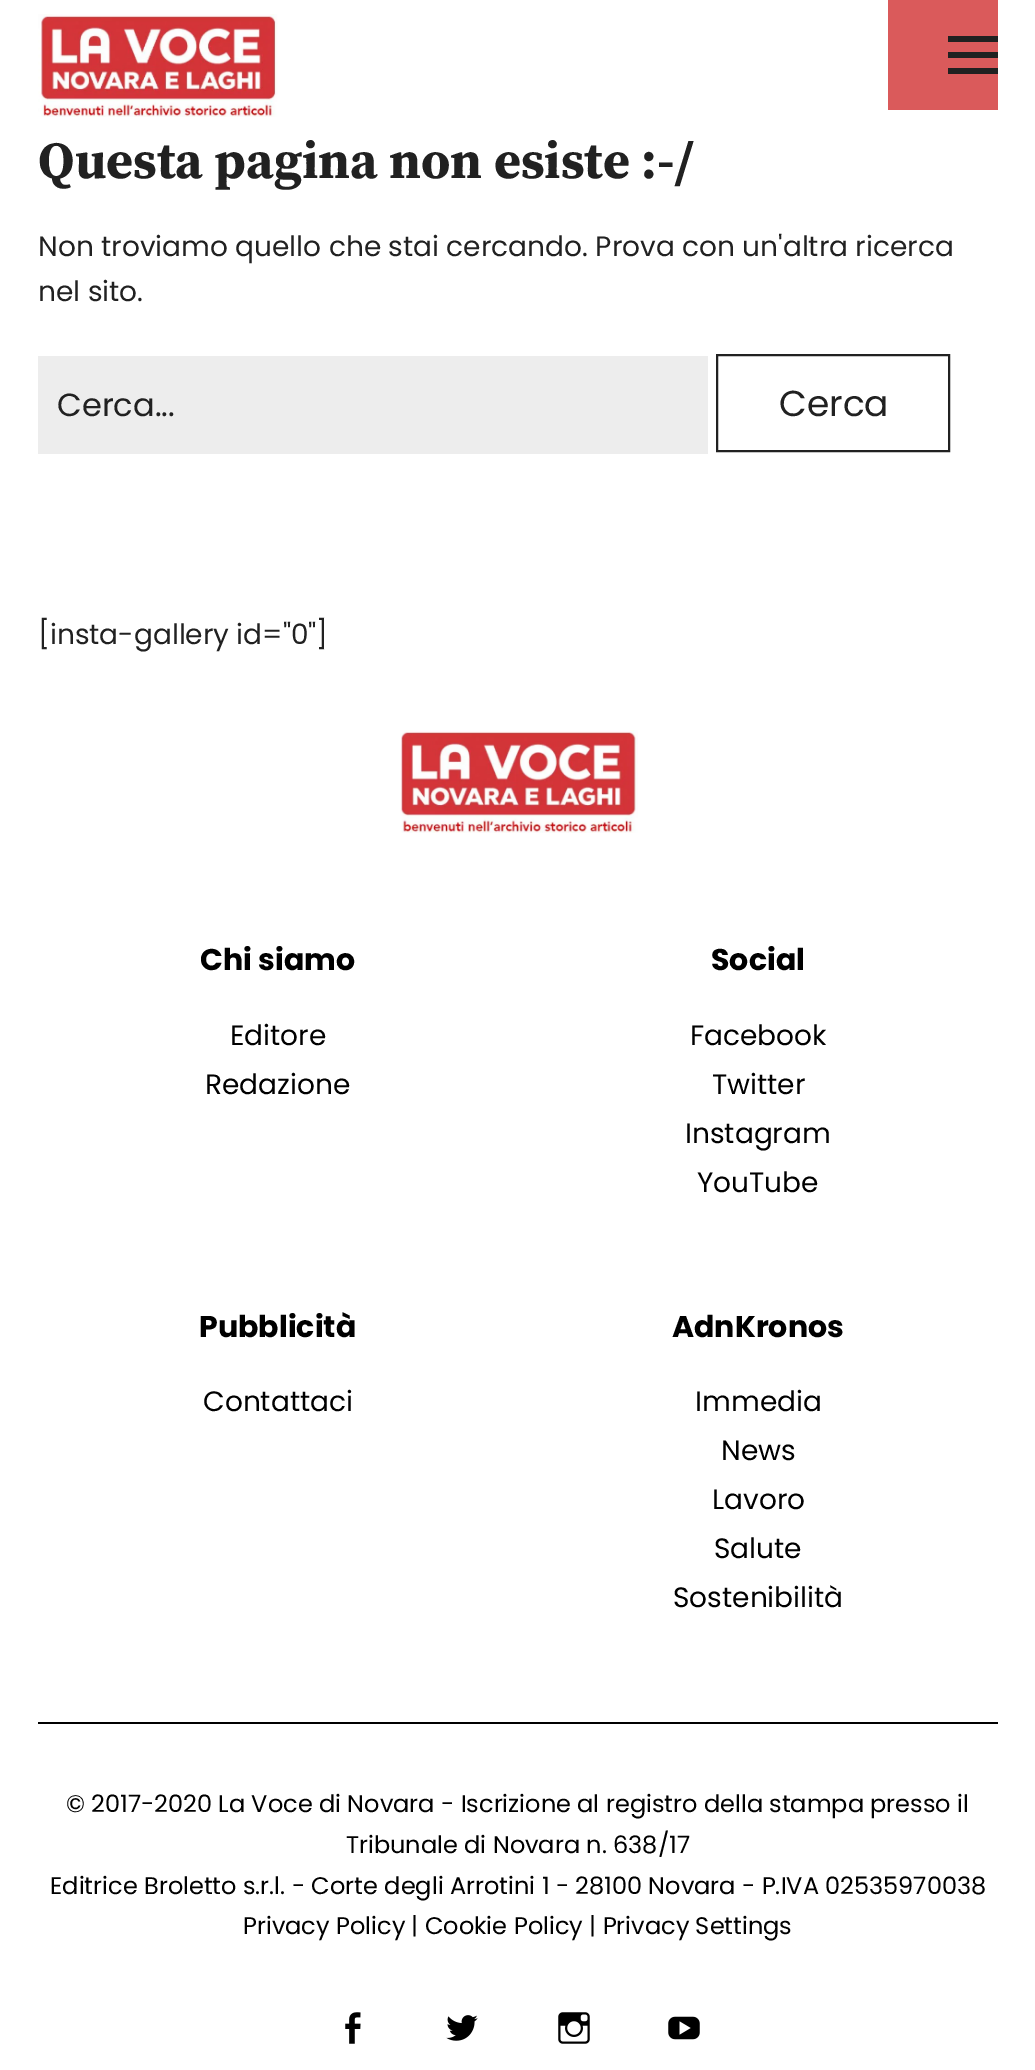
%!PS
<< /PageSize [1035 2070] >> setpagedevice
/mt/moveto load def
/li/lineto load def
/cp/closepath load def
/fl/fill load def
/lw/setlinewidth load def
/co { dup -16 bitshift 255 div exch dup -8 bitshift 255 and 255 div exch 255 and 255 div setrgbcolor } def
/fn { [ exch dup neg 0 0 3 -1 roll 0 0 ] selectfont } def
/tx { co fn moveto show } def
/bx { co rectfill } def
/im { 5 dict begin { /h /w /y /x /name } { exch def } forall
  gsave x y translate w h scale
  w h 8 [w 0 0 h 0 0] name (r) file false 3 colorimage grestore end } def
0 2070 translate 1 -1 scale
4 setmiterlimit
0 0 1035 2070 16#FFFFFF bx
(media/1.raw) 38 14 240 103 im
888 0 110 110 16#DA5A5B bx
16#212121 co
948 74 mt 948 68 li 998 68 li 998 74 li cp 948 36 mt 998 36 li 998 42 li 948 42 li cp 948 58 mt 948 52 li 998 52 li 998 58 li cp fl
38 356 670 98 16#EDEDED bx
16#212121 co
2 lw
717 355 232 96 rectstroke
38 1722 960 2 16#000000 bx
(media/2.raw) 400 730 238 103 im
(media/3.raw) 345 2012 16 32 im
(media/4.raw) 446 2015 32 26 im
(media/5.raw) 558 2012 32 32 im
(media/6.raw) 668 2016 32 24 im
(Questa pagina non esiste :-/) 38 178 /SourceSerifPro-Bold 52 16#212121 tx
(Non troviamo quello che stai cercando. Prova con un'altra ricerca) 38 256 /Poppins-Regular 28 16#212121 tx
(nel sito.) 38 301 /Poppins-Regular 28 16#212121 tx
(Cerca...) 57 416 /Poppins-Regular 32 16#212121 tx
(Cerca) 779 416 /Poppins-Regular 36 16#212121 tx
([insta-gallery id="0"]) 38 644 /Poppins-Regular 28 16#212121 tx
(Chi siamo) 200 970 /Poppins-Bold 30 16#000000 tx
(Editore) 230 1045 /Poppins-Regular 28 16#000000 tx
(Redazione) 205 1094 /Poppins-Regular 28 16#000000 tx
(Social) 711 970 /Poppins-Bold 30 16#000000 tx
(Facebook) 690 1045 /Poppins-Regular 28 16#000000 tx
(Twitter) 712 1094 /Poppins-Regular 28 16#000000 tx
(Instagram) 685 1143 /Poppins-Regular 28 16#000000 tx
(YouTube) 697 1192 /Poppins-Regular 28 16#000000 tx
(Pubblicità) 199 1337 /Poppins-Bold 30 16#000000 tx
(Contattaci) 203 1411 /Poppins-Regular 28 16#000000 tx
(AdnKronos) 672 1337 /Poppins-Bold 30 16#000000 tx
(Immedia) 695 1411 /Poppins-Regular 28 16#000000 tx
(News) 721 1460 /Poppins-Regular 28 16#000000 tx
(Lavoro) 712 1509 /Poppins-Regular 28 16#000000 tx
(Salute) 714 1558 /Poppins-Regular 28 16#000000 tx
(Sostenibilità) 673 1607 /Poppins-Regular 28 16#000000 tx
(© 2017-2020 La Voce di Novara - Iscrizione al registro della stampa presso il) 66 1812 /Poppins-Regular 24 16#000000 tx
(Tribunale di Novara n. 638/17) 346 1853 /Poppins-Regular 24 16#000000 tx
(Editrice Broletto s.r.l. - Corte degli Arrotini 1 - 28100 Novara - P.IVA 02535970038) 50 1894 /Poppins-Regular 24 16#000000 tx
(Privacy Policy | Cookie Policy | Privacy Settings) 243 1934 /Poppins-Regular 24 16#000000 tx
showpage
